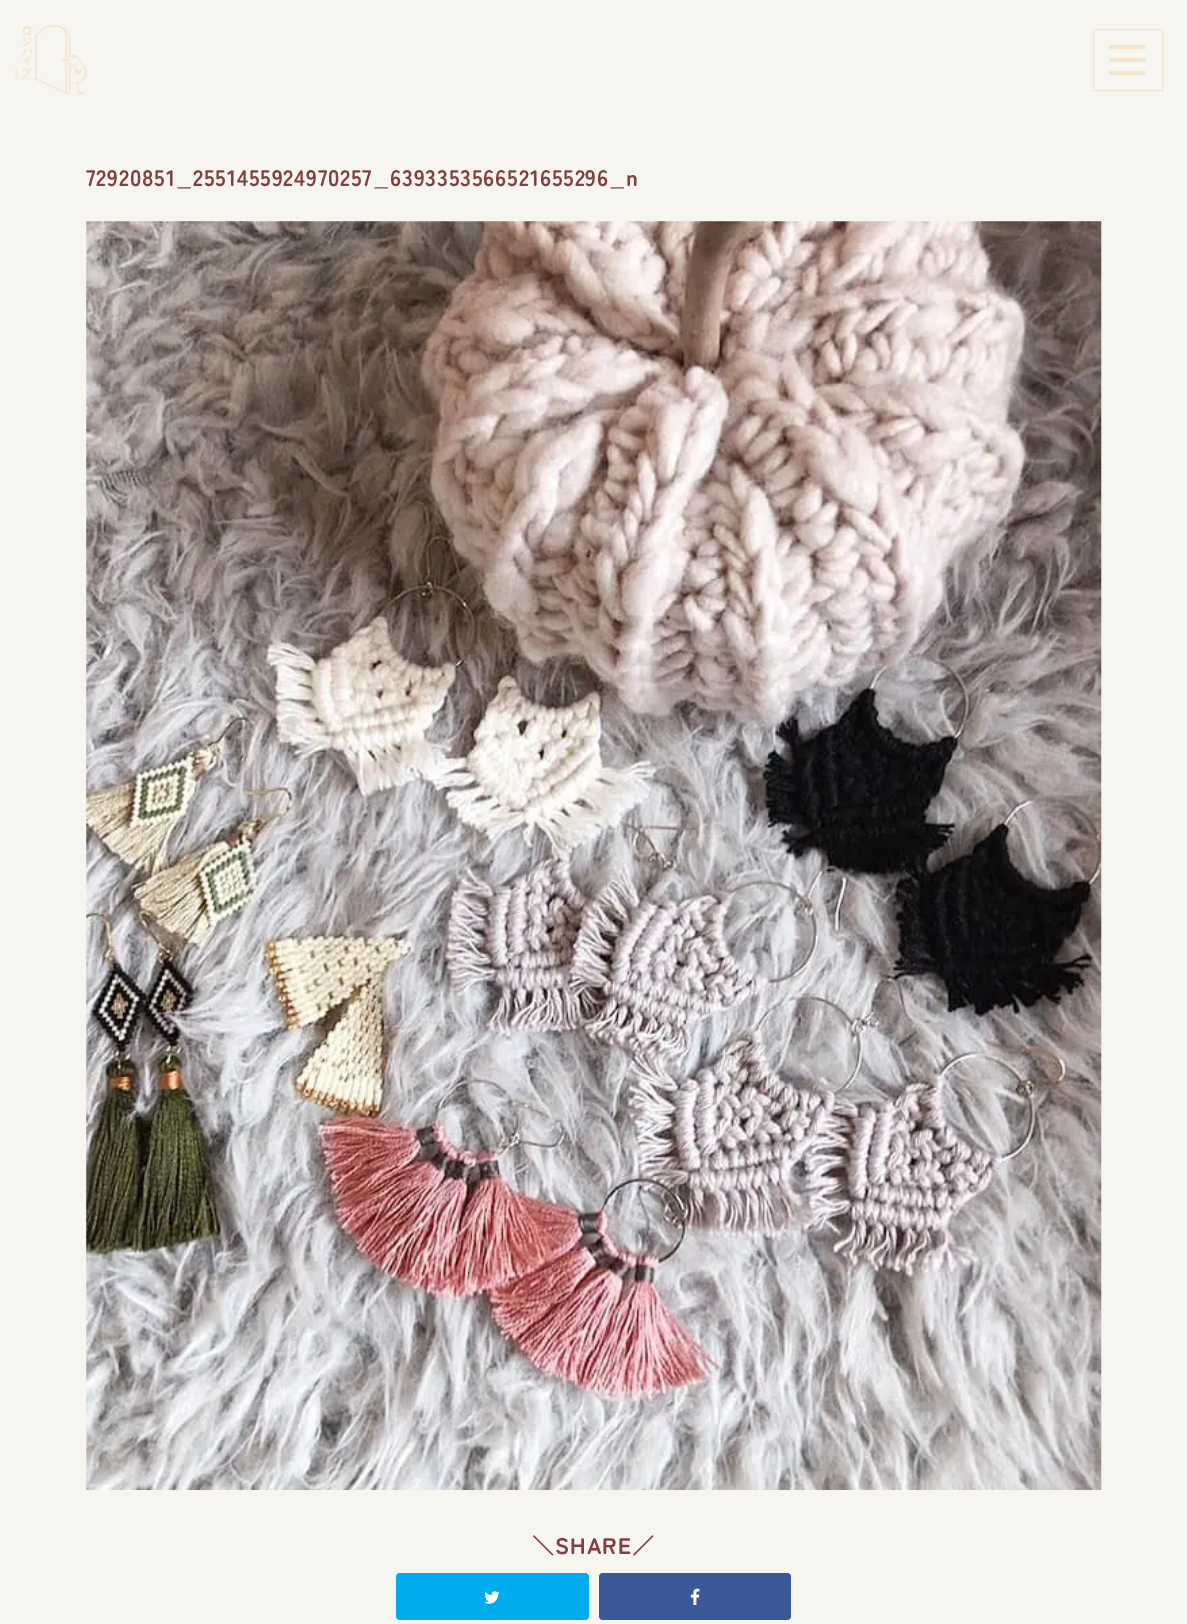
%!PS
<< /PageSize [1187 1624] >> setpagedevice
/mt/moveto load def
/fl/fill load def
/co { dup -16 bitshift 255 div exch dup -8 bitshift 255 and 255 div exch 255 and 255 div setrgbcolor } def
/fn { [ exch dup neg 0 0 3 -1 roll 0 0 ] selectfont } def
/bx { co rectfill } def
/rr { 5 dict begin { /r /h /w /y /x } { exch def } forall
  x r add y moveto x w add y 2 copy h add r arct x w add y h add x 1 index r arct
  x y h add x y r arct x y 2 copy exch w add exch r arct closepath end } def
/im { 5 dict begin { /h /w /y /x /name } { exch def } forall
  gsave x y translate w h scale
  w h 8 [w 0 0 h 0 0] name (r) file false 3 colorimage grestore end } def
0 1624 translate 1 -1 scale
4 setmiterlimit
0 0 1187 1624 16#F6F5EF bx
(media/1.raw) 12 25 76 70 im
16#F4E4CA co
1093.5 29.5 69 61 rectstroke
1109 45 37 4 16#F4E4CA bx
1109 58 37 4 16#F4E4CA bx
1109 71 37 4 16#F4E4CA bx
(media/2.raw) 86 221 1016 1269 im
16#00ACEE co
396 1573 193 47 4 rr fl
(media/3.raw) 484 1591 16 13 im
16#3B5998 co
599 1573 192 47 4 rr fl
(media/4.raw) 690 1588 10 17 im
/ZenMaruGothic-Bold 22.5 fn
16#804040 co
86 186 mt .85 0 (72920851_2551455924970257_6393353566521655296_n) ashow
532 1554 mt .85 0 (＼SHARE／) ashow
showpage
